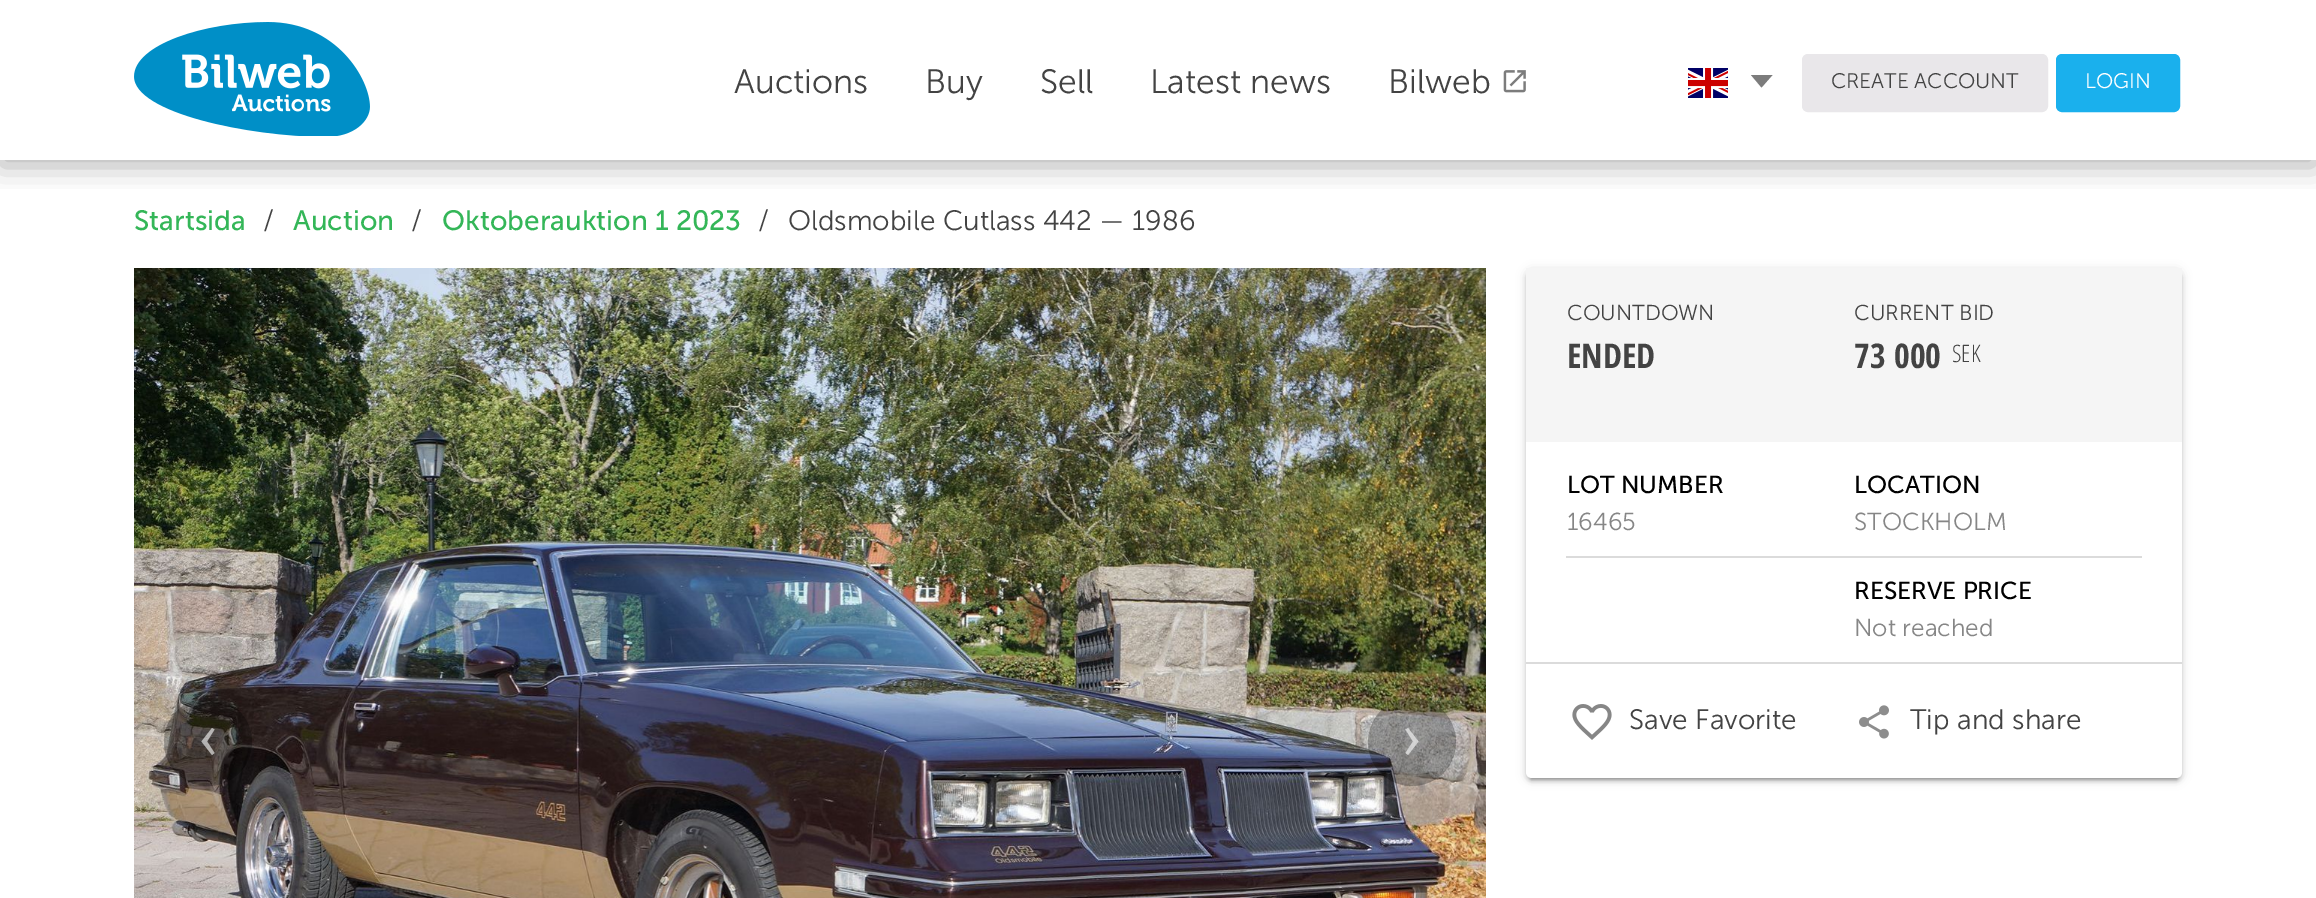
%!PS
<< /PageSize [2316 898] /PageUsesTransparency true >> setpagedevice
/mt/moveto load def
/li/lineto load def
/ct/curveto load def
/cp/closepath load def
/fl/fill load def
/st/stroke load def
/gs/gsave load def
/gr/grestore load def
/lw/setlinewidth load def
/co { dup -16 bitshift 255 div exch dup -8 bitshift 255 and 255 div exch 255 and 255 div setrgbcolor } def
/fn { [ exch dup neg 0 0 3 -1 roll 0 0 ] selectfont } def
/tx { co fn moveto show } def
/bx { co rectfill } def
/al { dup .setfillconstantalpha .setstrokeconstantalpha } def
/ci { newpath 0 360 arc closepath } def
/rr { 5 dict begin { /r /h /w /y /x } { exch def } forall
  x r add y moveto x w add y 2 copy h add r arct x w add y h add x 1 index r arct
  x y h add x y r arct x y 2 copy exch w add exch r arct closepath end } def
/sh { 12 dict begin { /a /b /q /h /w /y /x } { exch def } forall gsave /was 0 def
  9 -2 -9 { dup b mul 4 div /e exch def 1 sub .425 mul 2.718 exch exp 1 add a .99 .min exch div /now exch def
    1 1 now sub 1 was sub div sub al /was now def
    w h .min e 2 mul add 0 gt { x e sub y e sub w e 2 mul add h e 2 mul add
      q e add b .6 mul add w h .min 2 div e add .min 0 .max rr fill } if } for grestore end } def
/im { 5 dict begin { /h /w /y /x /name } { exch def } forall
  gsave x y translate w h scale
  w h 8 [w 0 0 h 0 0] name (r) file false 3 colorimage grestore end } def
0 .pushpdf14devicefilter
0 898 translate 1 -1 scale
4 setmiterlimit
0 0 2316 898 16#FFFFFF bx
gs
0 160 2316 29 rectclip
16#000000 co
0 6 2316 160 0 15 .3 sh
gr
(media/1.raw) 134 22 236 114 im
(media/2.raw) 1503 70 23 23 im
(media/3.raw) 1688 68 40 30 im
16#7C7C7C co
1761.5 87.5 mt 1751 75 li 1772.5 75 li cp fl
16#E9E7EA co
1803 55 244 56 5 rr gs fl gr
2 lw
st
16#1AB0ED co
2057 55 122 56 5 rr gs fl gr
st
(media/4.raw) 134 268 1352 630 im
0.27 al
16#000000 co
208 742 44 ci fl
0.6 al
16#FFFFFF co
212 755 mt 214.5 753 li 207 741.5 li 214.5 729.5 li 212 728 li 201.5 741.5 li cp fl
0.27 al
16#000000 co
1412 742 44 ci fl
0.6 al
16#FFFFFF co
1408 755 mt 1405.5 753 li 1413 741.5 li 1405.5 729.5 li 1408 728 li 1418.5 741.5 li cp fl
1 al
16#000000 co
1526 270 656 510 6 5 .12 sh
1530 278 648 502 2 1 .2 sh
1526 272 656 510 6 2 .14 sh
16#FFFFFF co
1526 268 mt 2182 268 li 2182 772 li 2182 775.5 2179.5 778 2176 778 ct 1532 778 li 1528.5 778 1526 775.5 1526 772 ct cp fl
1526 268 656 174 16#F5F5F5 bx
1566 556 576 2 16#DBDBDB bx
1526 662 656 2 16#DBDBDB bx
(media/5.raw) 1572 704 40 36 im
(media/6.raw) 1859 705 30 34 im
(Auctions) 734 93 /MuseoSans-Light 33.75 16#434343 tx
(Buy) 925 93 /MuseoSans-Light 33.75 16#434343 tx
(Sell) 1040 93 /MuseoSans-Light 33.75 16#434343 tx
(Latest news) 1150 93 /MuseoSans-Light 33.75 16#434343 tx
(Bilweb) 1388 93 /MuseoSans-Light 33.75 16#434343 tx
(CREATE ACCOUNT) 1831 88 /MuseoSans-Light 21 16#434343 tx
(LOGIN) 2085 88 /MuseoSans-Light 21 16#FFFFFF tx
(Startsida) 134 230 /MuseoSans-Regular 28 16#34B658 tx
(/) 263 230 /MuseoSans-Light 28 16#434343 tx
(Auction) 293 230 /MuseoSans-Regular 28 16#34B658 tx
(/) 411 230 /MuseoSans-Light 28 16#434343 tx
(Oktoberauktion 1 2023) 442 230 /MuseoSans-Regular 28 16#34B658 tx
(/) 758 230 /MuseoSans-Light 28 16#434343 tx
(Oldsmobile Cutlass 442 — 1986) 788 230 /MuseoSans-Light 28 16#434343 tx
(COUNTDOWN) 1567 320 /MuseoSans-Light 21.5 16#434343 tx
(CURRENT BID) 1854 320 /MuseoSans-Light 21.5 16#434343 tx
(ENDED) 1567 368 /OpenSansCondensed-Bold 34 16#434343 tx
(73 000) 1854 368 /OpenSansCondensed-Bold 34 16#434343 tx
(SEK) 1952 362 /OpenSansCondensed-Light 24 16#434343 tx
(LOT NUMBER) 1567 493 /MuseoSans-Regular 24.5 16#000000 tx
(LOCATION) 1854 493 /MuseoSans-Regular 24.5 16#000000 tx
(16465) 1567 530 /MuseoSans-Light 24.5 16#868686 tx
(STOCKHOLM) 1854 530 /MuseoSans-Light 24.5 16#868686 tx
(RESERVE PRICE) 1854 599 /MuseoSans-Regular 24.5 16#000000 tx
(Not reached) 1854 636 /MuseoSans-Light 24.5 16#868686 tx
(Save Favorite) 1629 729 /MuseoSans-Light 28 16#434343 tx
(Tip and share) 1910 729 /MuseoSans-Light 28 16#434343 tx
.poppdf14devicefilter showpage
